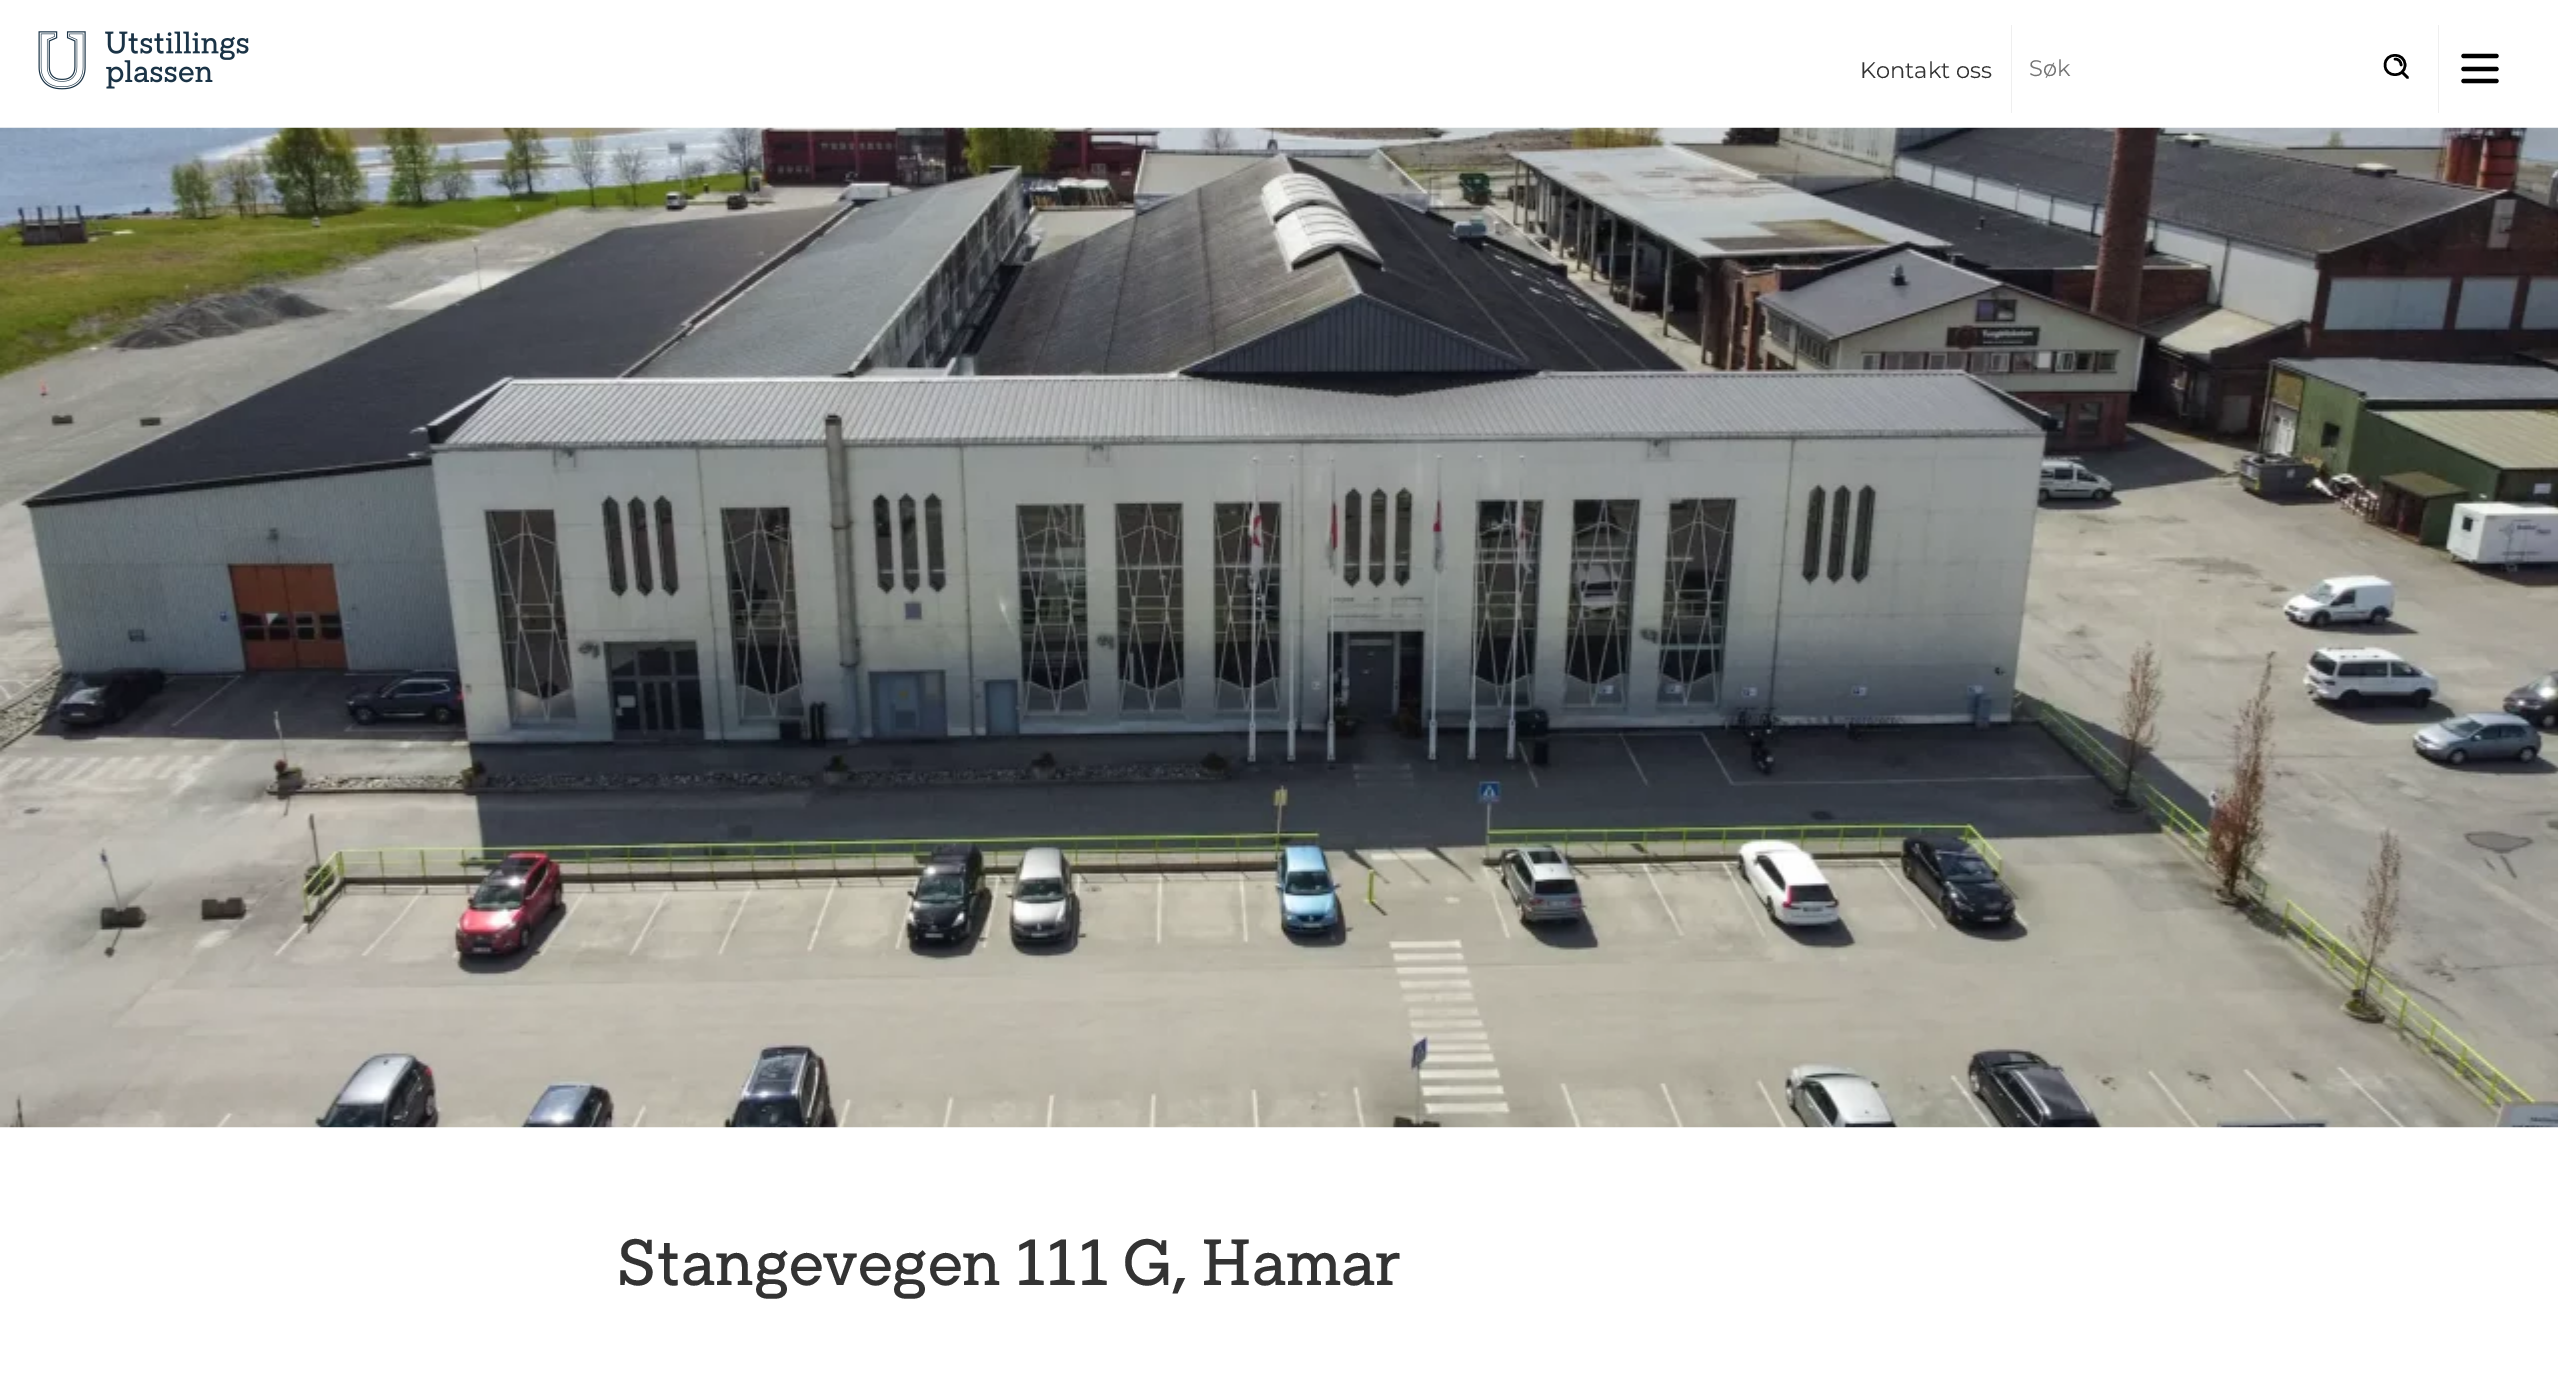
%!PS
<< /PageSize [2558 1383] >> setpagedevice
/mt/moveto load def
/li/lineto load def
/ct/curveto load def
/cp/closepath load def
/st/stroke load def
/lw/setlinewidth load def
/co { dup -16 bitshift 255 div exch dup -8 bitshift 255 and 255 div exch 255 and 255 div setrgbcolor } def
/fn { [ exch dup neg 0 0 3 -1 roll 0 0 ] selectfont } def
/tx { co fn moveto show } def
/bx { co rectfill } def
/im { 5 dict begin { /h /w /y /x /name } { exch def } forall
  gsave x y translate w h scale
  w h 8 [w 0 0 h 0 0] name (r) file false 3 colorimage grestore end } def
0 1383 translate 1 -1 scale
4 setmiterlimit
0 0 2558 1383 16#FFFFFF bx
(media/1.raw) 38 31 211 59 im
2438 25 1 88 16#EFEFEF bx
2011 25 1 88 16#EFEFEF bx
16#000000 co
2.5 lw
1 setlinecap
1 setlinejoin
2395 59 mt 2398.5 59 2401 61.5 2401 65 ct 2402 72 mt 2407.5 77.5 li 2405 65 mt 2405 78 2385 78 2385 65 ct 2385 52 2405 52 2405 65 ct cp st
4.2 lw
2463.5 56 mt 2496.5 56 li 2463.5 69 mt 2496.5 69 li 2463.5 81 mt 2496.5 81 li st
(media/2.raw) 0 127 2558 1001 im
(Kontakt oss) 1860 78 /Montserrat-Regular 22.5 16#333333 tx
(Søk) 2029 76 /Montserrat-Regular 22.5 16#757575 tx
(Stangevegen 111 G, Hamar) 616 1285 /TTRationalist-Medium 65 16#333333 tx
showpage
